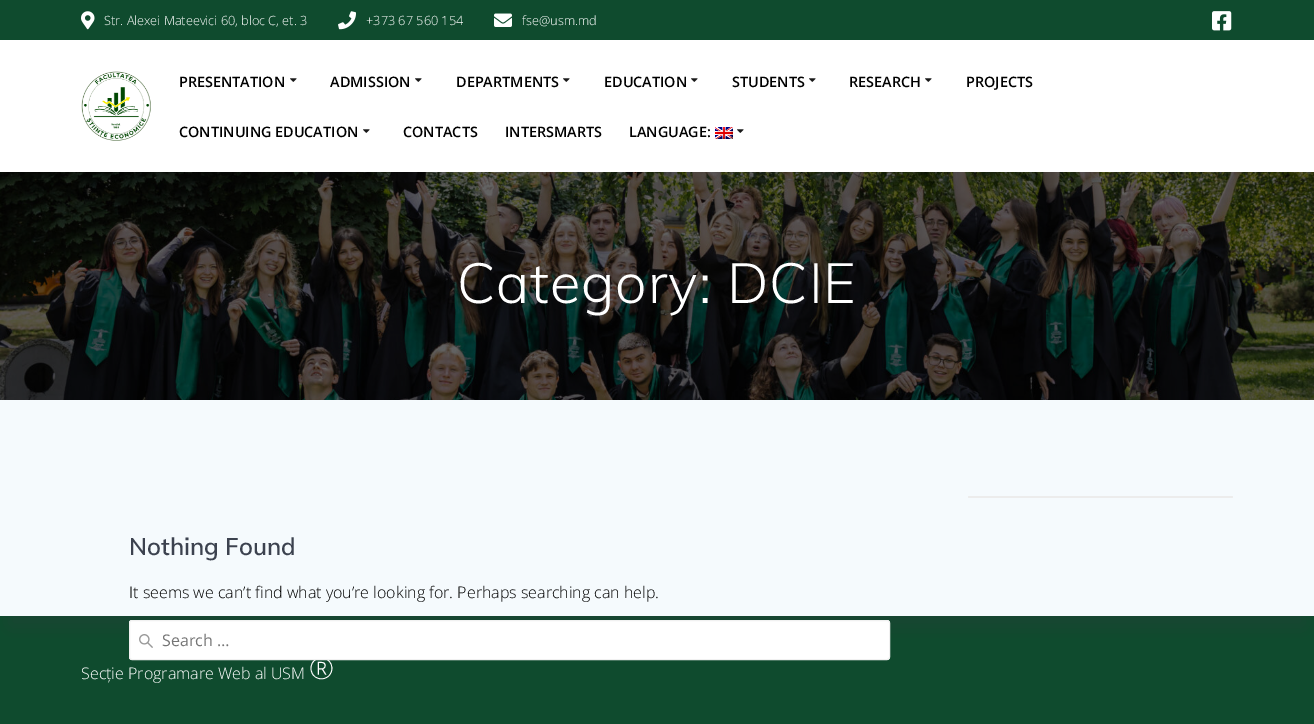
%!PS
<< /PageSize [1314 724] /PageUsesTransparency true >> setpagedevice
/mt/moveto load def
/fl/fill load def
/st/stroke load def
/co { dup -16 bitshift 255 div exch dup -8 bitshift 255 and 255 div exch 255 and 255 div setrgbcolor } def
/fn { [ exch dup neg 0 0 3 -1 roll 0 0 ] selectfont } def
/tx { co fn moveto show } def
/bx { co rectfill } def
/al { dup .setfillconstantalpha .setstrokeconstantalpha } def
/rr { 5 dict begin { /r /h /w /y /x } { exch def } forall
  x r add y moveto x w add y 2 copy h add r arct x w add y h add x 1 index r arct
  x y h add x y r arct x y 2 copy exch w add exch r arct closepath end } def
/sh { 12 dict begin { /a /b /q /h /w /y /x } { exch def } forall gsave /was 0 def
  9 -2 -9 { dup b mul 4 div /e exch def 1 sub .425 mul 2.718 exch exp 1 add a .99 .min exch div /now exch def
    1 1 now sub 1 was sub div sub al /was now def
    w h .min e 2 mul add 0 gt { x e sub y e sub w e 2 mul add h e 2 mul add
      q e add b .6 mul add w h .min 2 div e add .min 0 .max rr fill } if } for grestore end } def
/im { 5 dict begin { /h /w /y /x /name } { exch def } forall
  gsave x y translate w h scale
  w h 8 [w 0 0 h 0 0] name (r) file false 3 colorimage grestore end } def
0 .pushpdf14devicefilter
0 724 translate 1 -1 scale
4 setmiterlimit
0 0 1314 724 16#0F4B2E bx
(media/1.raw) 81 11 14 19 im
(media/2.raw) 338 11 18 19 im
(media/3.raw) 494 13 18 14 im
(media/4.raw) 1212 11 20 20 im
0 40 1314 132 16#FFFFFF bx
(media/5.raw) 81 71 70 70 im
(media/6.raw) 290 78 7 4 im
(media/6.raw) 415 78 7 4 im
(media/6.raw) 563 78 7 4 im
(media/6.raw) 691 78 7 4 im
(media/6.raw) 809 78 7 4 im
(media/6.raw) 925 78 7 4 im
(media/6.raw) 363 129 7 4 im
(media/7.raw) 715 127 18 12 im
(media/6.raw) 737 129 7 4 im
(media/8.raw) 0 172 1314 228 im
16#313439 co
10 430 1294 196 0 10 .3 sh
0 400 1314 216 16#F5FAFD bx
16#ECECEC co
968 496 265 2 1 rr fl
16#FFFFFF co
129 620 761 40 3 rr fl
(media/9.raw) 139 634 14 14 im
(Str. Alexei Mateevici 60, bloc C, et. 3) 104 25 /OpenSans-Light 12.75 16#FFFFFF tx
(+373 67 560 154) 366 25 /OpenSans-Light 12.75 16#FFFFFF tx
(fse@usm.md) 522 25 /OpenSans-Light 12.75 16#FFFFFF tx
(PRESENTATION) 179 87 /OpenSans-SemiBold 14.4 16#000000 tx
(ADMISSION) 330 87 /OpenSans-SemiBold 14.4 16#000000 tx
(DEPARTMENTS) 456 87 /OpenSans-SemiBold 14.4 16#000000 tx
(EDUCATION) 604 87 /OpenSans-SemiBold 14.4 16#000000 tx
(STUDENTS) 732 87 /OpenSans-SemiBold 14.4 16#000000 tx
(RESEARCH) 849 87 /OpenSans-SemiBold 14.4 16#000000 tx
(PROJECTS) 966 87 /OpenSans-SemiBold 14.4 16#000000 tx
(CONTINUING EDUCATION) 179 137 /OpenSans-SemiBold 14.4 16#000000 tx
(CONTACTS) 403 137 /OpenSans-SemiBold 14.4 16#000000 tx
(INTERSMARTS) 505 137 /OpenSans-SemiBold 14.4 16#000000 tx
(LANGUAGE:) 629 137 /OpenSans-SemiBold 14.4 16#000000 tx
/Muli-Light 56 fn
16#FFFFFF co
457 303 mt .9 0 (Category: DCIE) ashow
(Nothing Found) 129 555 /Muli-SemiBold 24 16#3C424F tx
(It seems we can’t find what you’re looking for. Perhaps searching can help.) 129 598 /OpenSans-Light 16 16#000000 tx
(Secție Programare Web al USM) 81 679 /OpenSans-Light 16 16#FFFFFF tx
(®) 309 679 /OpenSans-Light 30 16#FFFFFF tx
16#F1F1F1 co
129.5 620.5 760 39 2.5 rr st
(Search …) 162 646 /OpenSans-Regular 16 16#757575 tx
.poppdf14devicefilter showpage
